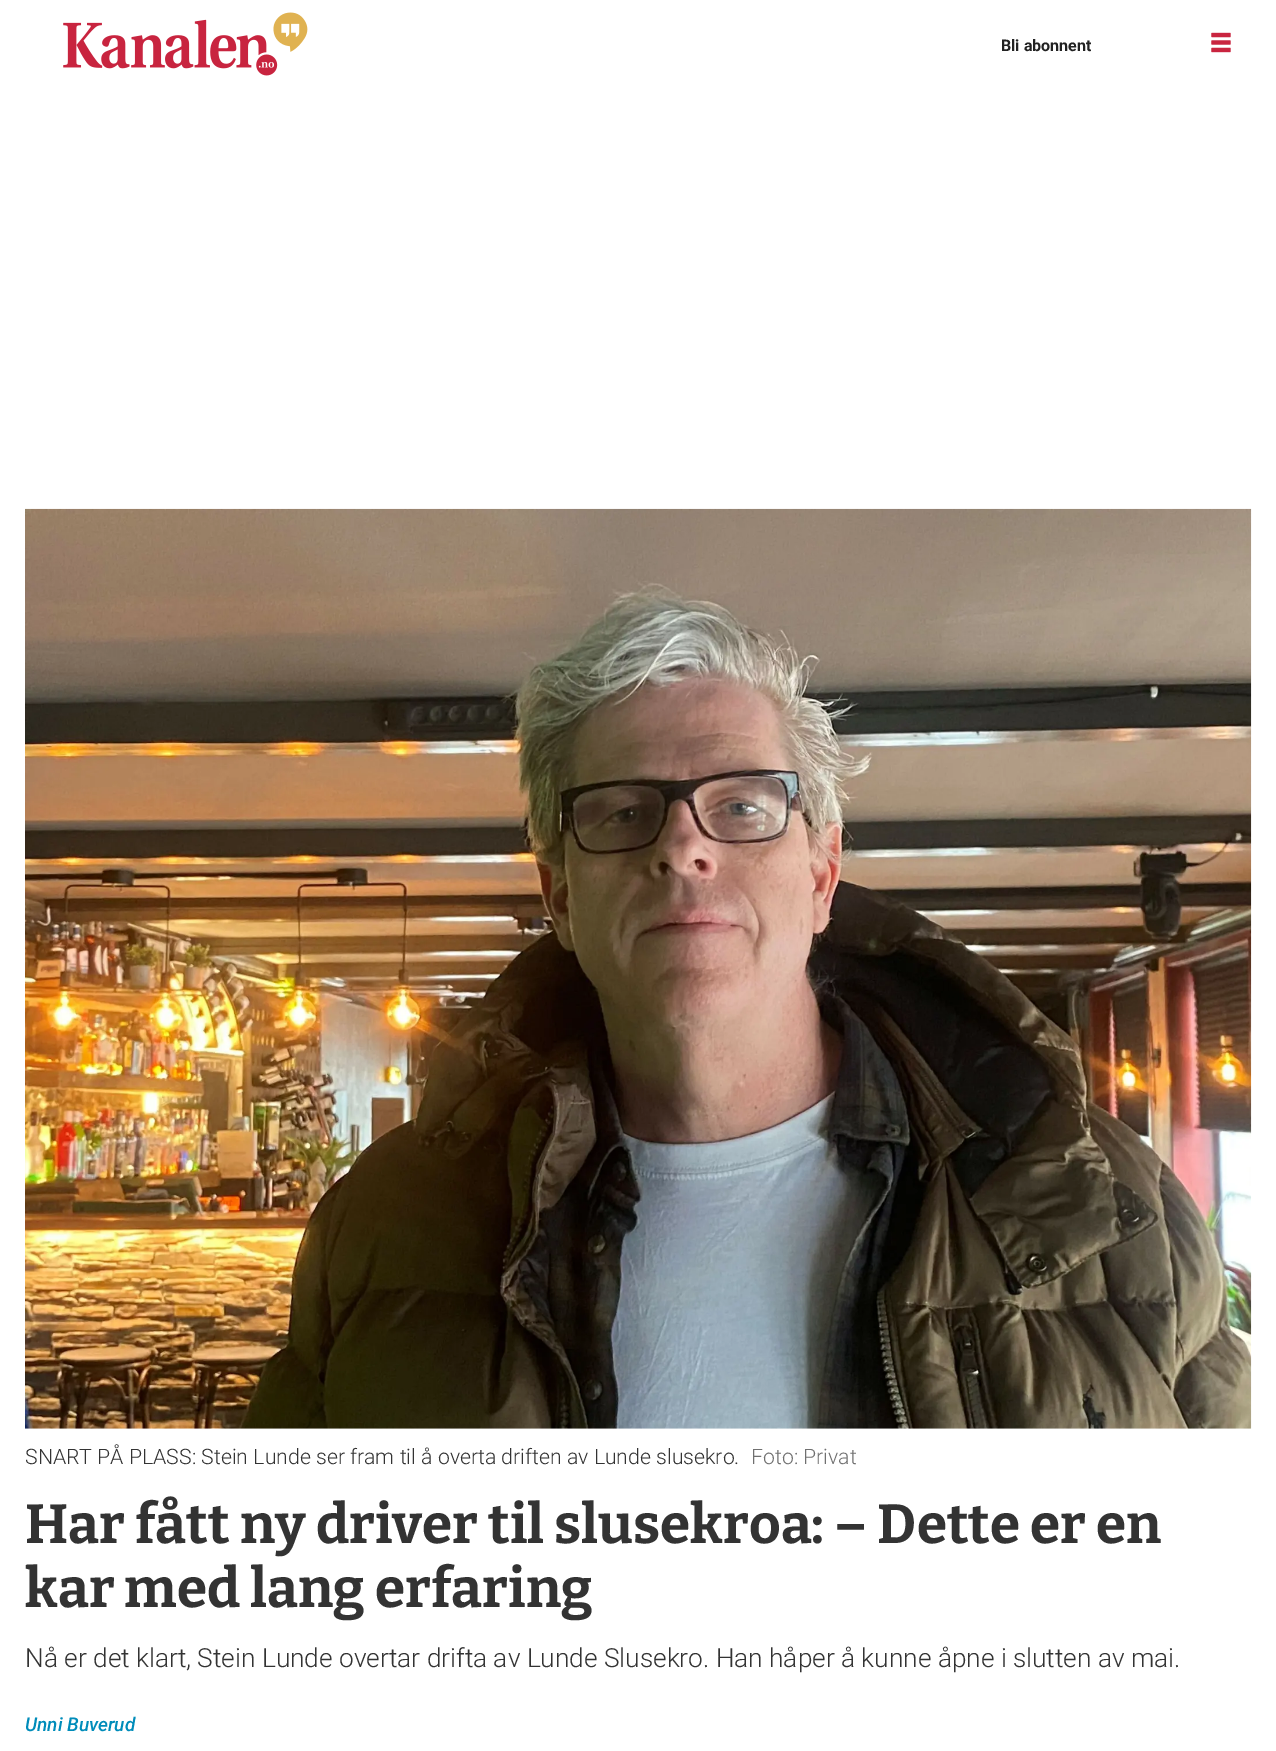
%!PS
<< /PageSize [1276 1751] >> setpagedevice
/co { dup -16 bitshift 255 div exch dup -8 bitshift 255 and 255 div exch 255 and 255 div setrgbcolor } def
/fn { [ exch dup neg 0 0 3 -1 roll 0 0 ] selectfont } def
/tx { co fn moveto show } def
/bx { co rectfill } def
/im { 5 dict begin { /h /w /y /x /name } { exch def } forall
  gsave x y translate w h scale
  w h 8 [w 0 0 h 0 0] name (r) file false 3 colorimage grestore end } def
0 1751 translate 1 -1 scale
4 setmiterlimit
0 0 1276 1751 16#FFFFFF bx
(media/1.raw) 63 12 245 64 im
(media/2.raw) 1211 32 20 21 im
(media/3.raw) 25 508 1227 921 im
(Bli abonnent) 1001 51 /Roboto-Bold 16 16#222222 tx
(SNART PÅ PLASS: Stein Lunde ser fram til å overta driften av Lunde slusekro.) 25 1464 /Roboto-Light 21.25 16#333333 tx
(Foto: Privat) 751 1464 /Roboto-Light 21.25 16#707070 tx
(Har fått ny driver til slusekroa: – Dette er en) 25 1543 /Bitter-Bold 55 16#333333 tx
(kar med lang erfaring) 25 1607 /Bitter-Bold 55 16#333333 tx
(Nå er det klart, Stein Lunde overtar drifta av Lunde Slusekro. Han håper å kunne åpne i slutten av mai.) 25 1667 /Roboto-Light 26.25 16#333333 tx
(Unni Buverud) 25 1731 /Roboto-MediumItalic 19 16#008CBA tx
showpage
